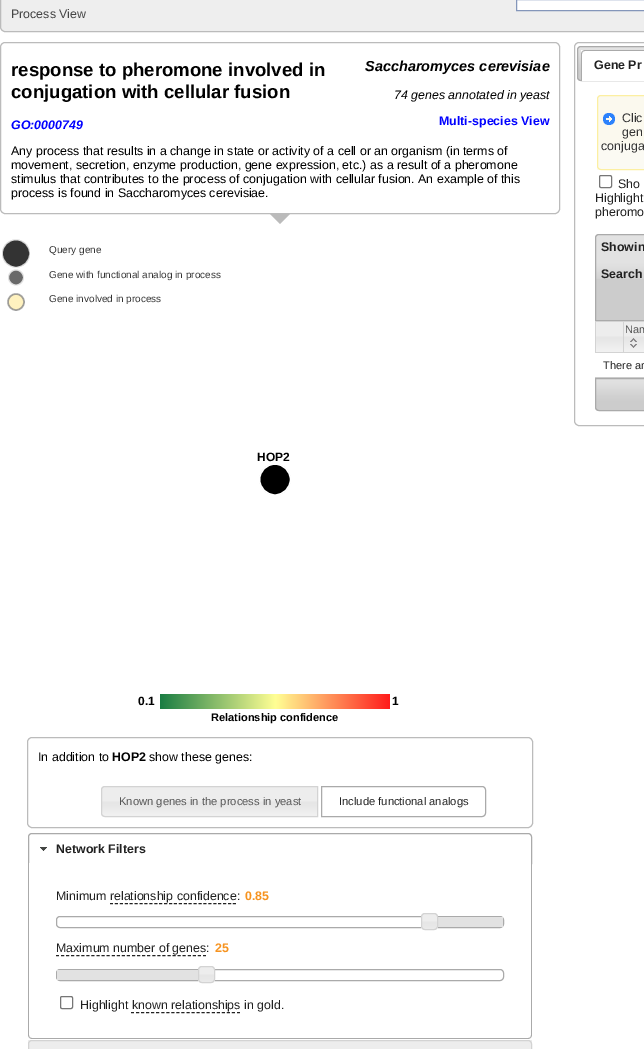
%!PS
<< /PageSize [644 1049] /PageUsesTransparency true >> setpagedevice
/mt/moveto load def
/li/lineto load def
/ct/curveto load def
/cp/closepath load def
/fl/fill load def
/st/stroke load def
/gs/gsave load def
/gr/grestore load def
/lw/setlinewidth load def
/co { dup -16 bitshift 255 div exch dup -8 bitshift 255 and 255 div exch 255 and 255 div setrgbcolor } def
/fn { [ exch dup neg 0 0 3 -1 roll 0 0 ] selectfont } def
/tx { co fn moveto show } def
/bx { co rectfill } def
/al { dup .setfillconstantalpha .setstrokeconstantalpha } def
/ci { newpath 0 360 arc closepath } def
/rr { 5 dict begin { /r /h /w /y /x } { exch def } forall
  x r add y moveto x w add y 2 copy h add r arct x w add y h add x 1 index r arct
  x y h add x y r arct x y 2 copy exch w add exch r arct closepath end } def
/im { 5 dict begin { /h /w /y /x /name } { exch def } forall
  gsave x y translate w h scale
  w h 8 [w 0 0 h 0 0] name (r) file false 3 colorimage grestore end } def
0 .pushpdf14devicefilter
0 1049 translate 1 -1 scale
4 setmiterlimit
0 0 644 1049 16#FFFFFF bx
16#EEEEEE co
.5 -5.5 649 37 4.5 rr gs fl gr
16#BBBBBB co
st
16#FFFFFF co
516.5 -.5 mt 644.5 -.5 li 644.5 10.5 li 516.5 10.5 li cp gs fl gr
16#8496BA co
st
16#BBBBBB co
.5 42.5 559 171 4.5 rr st
270 214 mt 290 214 li 280 224 li cp fl
16#333333 co
16 253.5 14 ci fl
0.8 al
16#FFFFFF co
1.5 lw
16 253.5 14 ci st
1 al
16#696969 co
16 277.5 8 ci fl
0.8 al
16#FFFFFF co
2 lw
16 277.5 8 ci st
1 al
16#FFF2BF co
16 302 8 ci fl
0.8 al
16#888888 co
1.5 lw
16 302 8 ci st
1 al
16#000000 co
275 479.5 15.5 ci gs fl gr
16#FFFFFF co
st
gs 160 694 mt 390 694 li 390 709 li 160 709 li cp clip newpath
<< /ShadingType 2 /ColorSpace /DeviceRGB /Coords [160 694 391 694] /Extend [true true] /Function << /FunctionType 3 /Domain [0 1] /Functions [<< /FunctionType 2 /Domain [0 1] /C0 [.102 .49 .263] /C1 [1 1 .58] /N 1 >> << /FunctionType 2 /Domain [0 1] /C0 [1 1 .58] /C1 [1 .102 .102] /N 1 >>] /Bounds [.5] /Encode [0 1 0 1] >> >> shfill gr
16#BBBBBB co
1 lw
27.5 737.5 505 90 4.5 rr st
(media/1.raw) 101 786 216 31 im
16#D3D3D3 co
105 786.5 mt 317.5 786.5 li 317.5 816.5 li 105 816.5 li 103 816.5 101.5 815 101.5 813 ct 101.5 790 li 101.5 788 103 786.5 105 786.5 ct cp st
16#AAAAAA co
321.5 786.5 mt 482 786.5 li 484 786.5 485.5 788 485.5 790 ct 485.5 813 li 485.5 815 484 816.5 482 816.5 ct 321.5 816.5 li cp st
32 833.5 mt 528 833.5 li 530 833.5 531.5 835 531.5 837 ct 531.5 863.5 li 28.5 863.5 li 28.5 837 li 28.5 835 30 833.5 32 833.5 ct cp st
(media/2.raw) 40 847 7 4 im
16#FFFFFF co
28 863 mt 532 863 li 532 1035 li 532 1037 530 1039 528 1039 ct 32 1039 li 30 1039 28 1037 28 1035 ct cp fl
16#AAAAAA co
28 863 mt 532 863 li 532 1035 li 532 1037 530 1039 528 1039 ct 32 1039 li 30 1039 28 1037 28 1035 ct cp 29 863 mt 531 863 li 531 1035 li 531 1037 530 1038 528 1038 ct 32 1038 li 30 1038 29 1037 29 1035 ct cp eofill
16#222222 co
[3 1.92] 0 setdash
110 903.5 mt 236 903.5 li st
16#AAAAAA co
[] 0 setdash
56.5 916.5 447 11 3.5 rr st
437 917 66 10 16#E2E2E2 bx
(media/3.raw) 421 913 17 17 im
16#D3D3D3 co
421.5 913.5 16 16 3.5 rr st
16#222222 co
[3 2.07] 0 setdash
56 955.5 mt 206 955.5 li st
16#AAAAAA co
[] 0 setdash
56.5 969.5 447 11 3.5 rr st
57 970 142 10 16#E2E2E2 bx
(media/3.raw) 198 966 17 17 im
16#D3D3D3 co
198.5 966.5 16 16 3.5 rr st
16#767676 co
60.5 996.5 12 12 1.5 rr st
16#222222 co
[3 2.05] 0 setdash
131 1012.5 mt 240 1012.5 li st
28 1040 504 9 16#EDEDED bx
16#D3D3D3 co
[] 0 setdash
28.5 1040.5 503 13 3.5 rr st
16#BBBBBB co
574.5 42.5 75 383 4.5 rr st
(media/4.raw) 577 46 67 35 im
16#AAAAAA co
577.5 46.5 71 34 3.5 rr st
581 50 63 31 16#FFFFFF bx
16#AAAAAA co
585 50 mt 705 50 li 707 50 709 52 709 54 ct 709 81 li 581 81 li 581 54 li 581 52 583 50 585 50 ct cp 585 51 mt 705 51 li 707 51 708 52 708 54 ct 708 81 li 582 81 li 582 54 li 582 52 583 51 585 51 ct cp eofill
16#FBF9EE co
597 95 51 75 4 rr fl
597 145 47 25 16#FBFAF3 bx
16#FCEFA1 co
597.5 95.5 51 74 3.5 rr st
(media/5.raw) 603 113 12 12 im
16#767676 co
599.5 175.5 12 12 1.5 rr st
16#CCCCCC co
599 234 mt 644 234 li 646 234 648 236 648 238 ct 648 321 li 595 321 li 595 238 li 595 236 597 234 599 234 ct cp fl
(media/6.raw) 595 234 49 45 im
16#AAAAAA co
599 234.5 mt 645 234.5 li 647 234.5 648.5 236 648.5 238 ct 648.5 320.5 li 595.5 320.5 li 595.5 238 li 595.5 236 597 234.5 599 234.5 ct cp st
(media/7.raw) 596 322 27 30 im
623 321 21 1 16#D3D3D3 bx
623 352 21 1 16#D3D3D3 bx
623 321 1 32 16#D3D3D3 bx
595 321 29 1 16#D3D3D3 bx
595 352 29 1 16#D3D3D3 bx
595 321 1 32 16#D3D3D3 bx
(media/8.raw) 624 322 20 30 im
(media/9.raw) 630 338 7 10 im
595 377 49 1 16#CCCCCC bx
(media/10.raw) 595 379 49 32 im
16#AAAAAA co
595.5 378.5 mt 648.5 378.5 li 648.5 407 li 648.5 409 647 410.5 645 410.5 ct 599 410.5 li 597 410.5 595.5 409 595.5 407 ct cp st
(Process View) 11 18 /LiberationSans-Regular 12.4 16#444444 tx
(response to pheromone involved in) 11 76 /LiberationSans-Bold 18.6 16#000000 tx
(conjugation with cellular fusion) 11 98 /LiberationSans-Bold 18.6 16#000000 tx
(Saccharomyces cerevisiae) 365 71 /LiberationSans-BoldItalic 14.5 16#000000 tx
(74 genes annotated in yeast) 394 99 /LiberationSans-Italic 12.4 16#000000 tx
(Multi-species View) 439 125 /LiberationSans-Bold 12.4 16#0000FF tx
(GO:0000749) 11 129 /LiberationSans-BoldItalic 12.4 16#0000FF tx
(Any process that results in a change in state or activity of a cell or an organism \(in terms of) 11 155 /LiberationSans-Regular 12.4 16#000000 tx
(movement, secretion, enzyme production, gene expression, etc.\) as a result of a pheromone) 11 169 /LiberationSans-Regular 12.4 16#000000 tx
(stimulus that contributes to the process of conjugation with cellular fusion. An example of this) 11 183 /LiberationSans-Regular 12.4 16#000000 tx
(process is found in Saccharomyces cerevisiae.) 11 197 /LiberationSans-Regular 12.4 16#000000 tx
(Query gene) 49 253 /LiberationSans-Regular 10 16#333333 tx
(Gene with functional analog in process) 49 278 /LiberationSans-Regular 10 16#333333 tx
(Gene involved in process) 49 302 /LiberationSans-Regular 10 16#333333 tx
(HOP2) 257 461 /LiberationSans-Bold 12 16#000000 tx
(0.1) 138 705 /LiberationSans-Bold 12 16#000000 tx
(1) 392 705 /LiberationSans-Bold 12 16#000000 tx
(Relationship confidence) 211 721 /LiberationSans-Bold 11 16#000000 tx
(In addition to) 38 761 /LiberationSans-Regular 12.4 16#000000 tx
(HOP2) 112 761 /LiberationSans-Bold 12.4 16#000000 tx
(show these genes:) 149 761 /LiberationSans-Regular 12.4 16#000000 tx
(Known genes in the process in yeast) 119 805 /LiberationSans-Regular 11.2 16#555555 tx
(Include functional analogs) 339 805 /LiberationSans-Regular 11.2 16#212121 tx
(Network Filters) 56 853 /LiberationSans-Bold 12.4 16#212121 tx
(Minimum relationship confidence:) 56 900 /LiberationSans-Regular 12.4 16#212121 tx
(0.85) 245 900 /LiberationSans-Bold 12.4 16#F6931F tx
(Maximum number of genes:) 56 952 /LiberationSans-Regular 12.4 16#212121 tx
(25) 215 952 /LiberationSans-Bold 12.4 16#F6931F tx
(Highlight known relationships in gold.) 80 1009 /LiberationSans-Regular 12.4 16#212121 tx
(Gene Pr) 594 69 /LiberationSans-Bold 12.4 16#212121 tx
(Clic) 622 122 /LiberationSans-Regular 12.4 16#333333 tx
(gen) 622 136 /LiberationSans-Regular 12.4 16#333333 tx
(conjuga) 601 150 /LiberationSans-Regular 12.4 16#333333 tx
(Sho) 618 188 /LiberationSans-Regular 12.4 16#212121 tx
(Highlight) 595 202 /LiberationSans-Regular 12.4 16#212121 tx
(pheromo) 595 216 /LiberationSans-Regular 12.4 16#212121 tx
(Showin) 601 251 /LiberationSans-Bold 12.4 16#212121 tx
(Search) 601 278 /LiberationSans-Bold 12.4 16#212121 tx
(Nam) 625 333 /LiberationSans-Regular 11 16#555555 tx
(There ar) 603 369 /LiberationSans-Regular 11 16#212121 tx
.poppdf14devicefilter showpage
